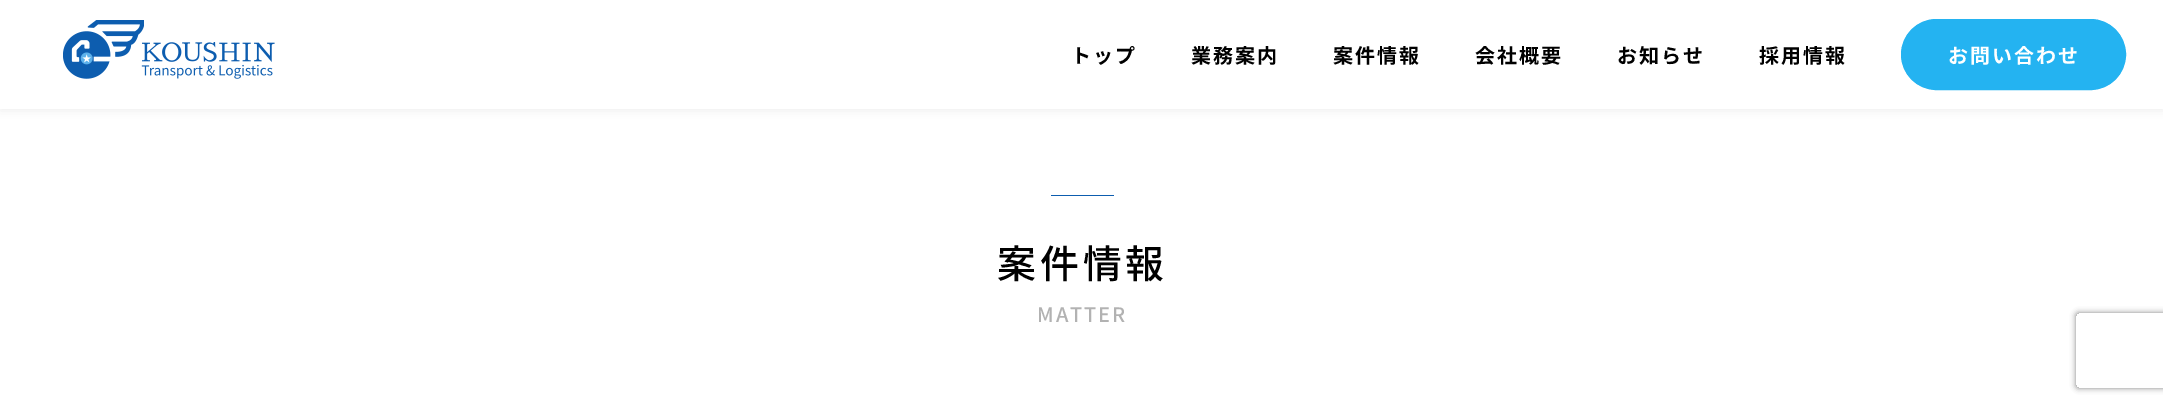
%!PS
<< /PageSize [2163 404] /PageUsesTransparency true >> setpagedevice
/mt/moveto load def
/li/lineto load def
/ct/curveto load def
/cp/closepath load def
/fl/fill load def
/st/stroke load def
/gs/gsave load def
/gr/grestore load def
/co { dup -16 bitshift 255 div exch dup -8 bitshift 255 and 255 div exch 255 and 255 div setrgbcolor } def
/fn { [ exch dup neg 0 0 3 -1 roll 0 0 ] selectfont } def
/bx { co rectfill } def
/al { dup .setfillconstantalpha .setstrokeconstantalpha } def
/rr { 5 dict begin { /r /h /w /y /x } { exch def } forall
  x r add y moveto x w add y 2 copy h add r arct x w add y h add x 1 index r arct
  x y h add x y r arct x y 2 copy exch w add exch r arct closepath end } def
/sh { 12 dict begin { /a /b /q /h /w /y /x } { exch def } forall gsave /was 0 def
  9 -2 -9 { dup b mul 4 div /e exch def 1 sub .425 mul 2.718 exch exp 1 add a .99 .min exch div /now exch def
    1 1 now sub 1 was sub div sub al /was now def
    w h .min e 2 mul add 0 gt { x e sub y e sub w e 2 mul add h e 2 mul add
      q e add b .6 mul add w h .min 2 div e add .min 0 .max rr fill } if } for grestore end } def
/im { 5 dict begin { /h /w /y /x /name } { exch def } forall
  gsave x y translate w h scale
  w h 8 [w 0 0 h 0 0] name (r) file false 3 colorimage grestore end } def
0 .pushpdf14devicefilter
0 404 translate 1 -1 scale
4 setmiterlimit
0 0 2163 404 16#FFFFFF bx
16#949494 co
0 3 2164 108 0 5 .16 sh
0 0 2163 109 16#FFFFFF bx
(media/1.raw) 63 20 212 59 im
16#24B3F1 co
1901.5 19.5 224 70 35 rr gs fl gr
st
1051 195 63 1 16#0D5DAF bx
gs
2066 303 mt 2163 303 li 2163 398 li 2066 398 li cp 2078.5 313 mt 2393.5 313 li 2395 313 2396 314 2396 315.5 ct 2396 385.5 li 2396 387 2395 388 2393.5 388 ct 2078.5 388 li 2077 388 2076 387 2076 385.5 ct 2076 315.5 li 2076 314 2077 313 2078.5 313 ct cp eoclip newpath
16#808080 co
2076 313 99 75 2.5 3 1 sh
gr
/NotoSansJP-Bold 20 fn
16#000000 co
1071 63 mt 2 0 (トップ) ashow
1191 63 mt 2 0 (業務案内) ashow
1333 63 mt 2 0 (案件情報) ashow
1475 63 mt 2 0 (会社概要) ashow
1617 63 mt 2 0 (お知らせ) ashow
1759 63 mt 2 0 (採用情報) ashow
16#FFFFFF co
1948 63 mt 2 0 (お問い合わせ) ashow
/NotoSansJP-Medium 38.75 fn
16#000000 co
997 278 mt 4 0 (案件情報) ashow
/NotoSansJP-Medium 20 fn
16#B2B2B2 co
1037 322 mt 2 0 (MATTER) ashow
.poppdf14devicefilter showpage
